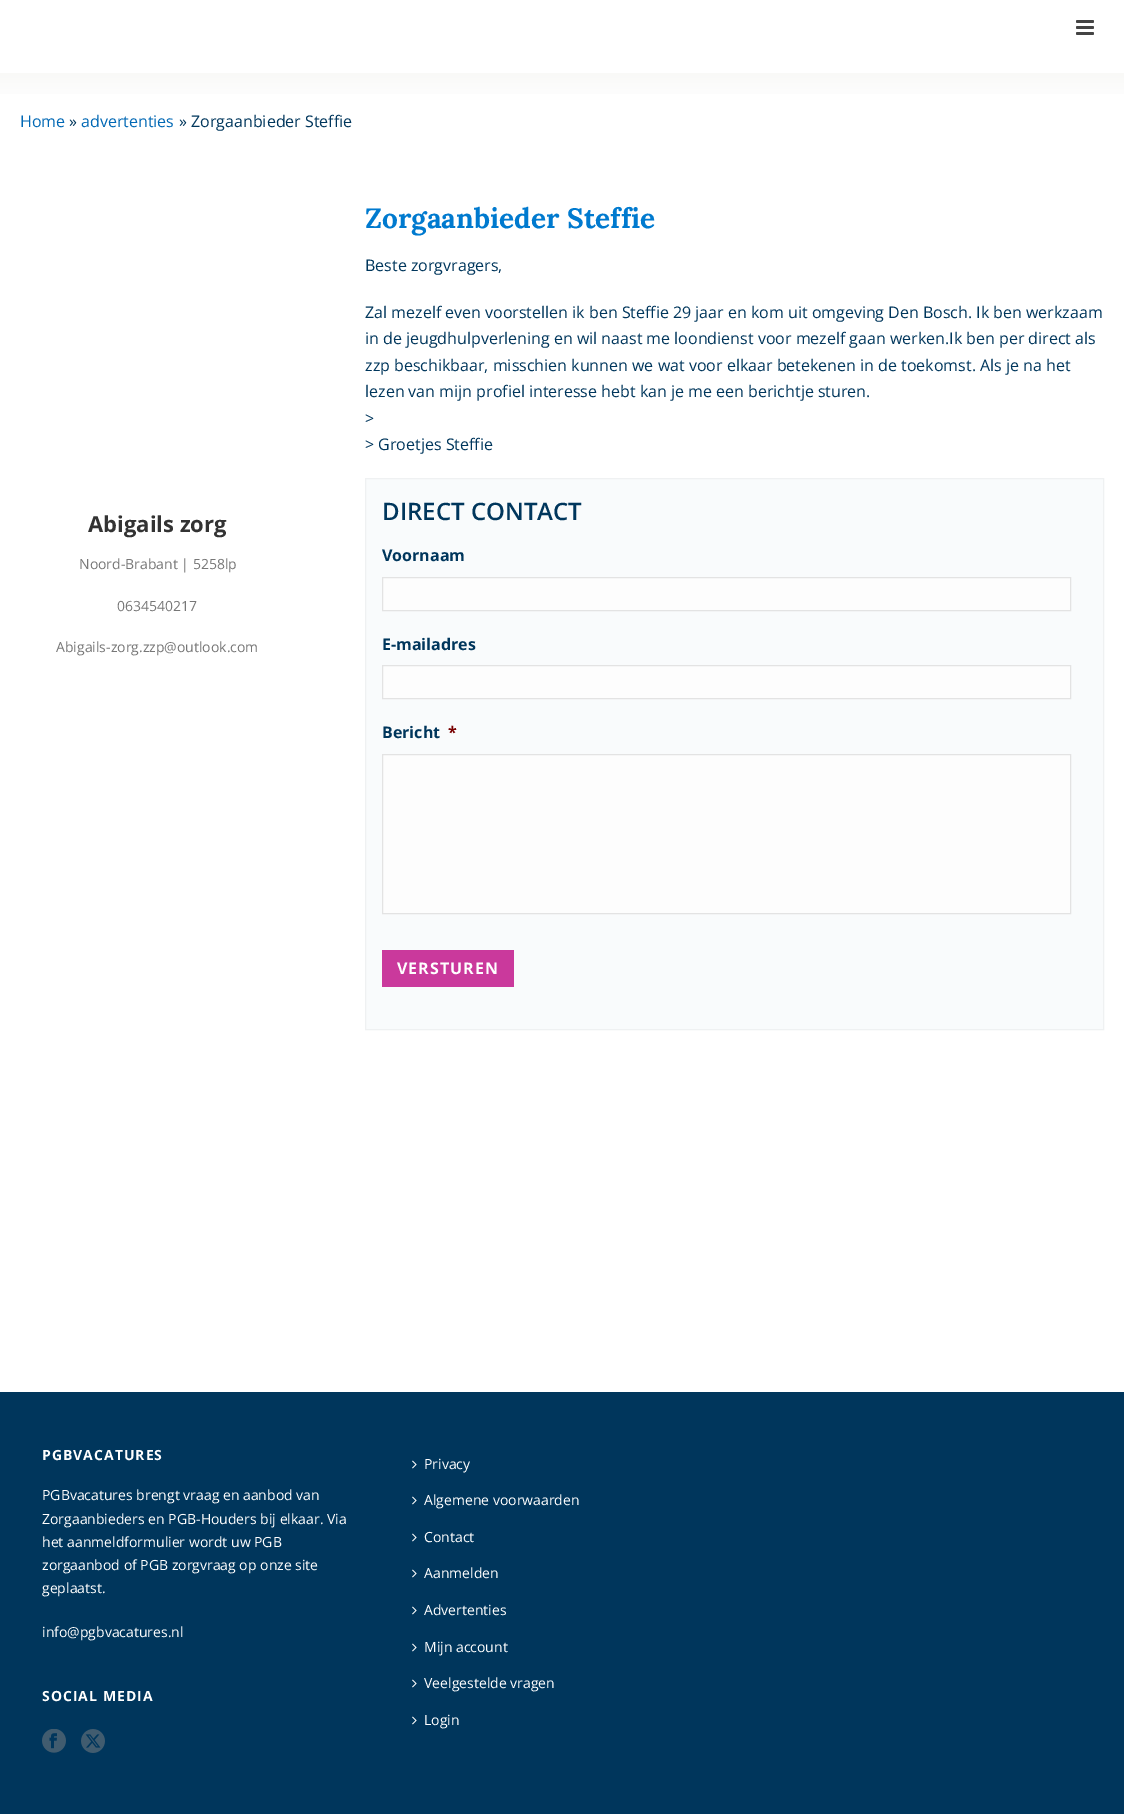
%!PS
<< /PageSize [1124 1814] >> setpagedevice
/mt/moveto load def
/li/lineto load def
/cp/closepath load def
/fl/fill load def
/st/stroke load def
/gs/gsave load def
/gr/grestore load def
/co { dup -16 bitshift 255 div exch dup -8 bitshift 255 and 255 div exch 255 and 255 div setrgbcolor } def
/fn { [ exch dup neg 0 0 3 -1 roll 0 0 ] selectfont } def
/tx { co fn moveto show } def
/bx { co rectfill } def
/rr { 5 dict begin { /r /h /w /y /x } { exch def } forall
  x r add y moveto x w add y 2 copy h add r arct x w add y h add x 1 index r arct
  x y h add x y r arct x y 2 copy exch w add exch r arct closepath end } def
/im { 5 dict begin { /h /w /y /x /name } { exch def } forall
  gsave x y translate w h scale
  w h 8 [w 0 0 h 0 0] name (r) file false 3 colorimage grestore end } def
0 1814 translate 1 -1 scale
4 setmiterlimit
0 0 1124 1814 16#FFFFFF bx
16#444444 co
1076 20 18 3 1.5 rr fl
1076 26 18 3 1.5 rr fl
1076 32 18 3 1.5 rr fl
gs 0 73 mt 1124 73 li 1124 94 li 0 94 li cp clip newpath
<< /ShadingType 2 /ColorSpace /DeviceRGB /Coords [562 103 562 73] /Extend [true true] /Function << /FunctionType 2 /Domain [0 1] /C0 [1 1 1] /C1 [.976 .976 .969] /N 1 >> >> shfill gr
16#F9FBFC co
365.5 478.5 mt 1103.5 478.5 li 1103.5 1029.5 li 365.5 1029.5 li cp gs fl gr
16#EFF1F2 co
st
16#FDFDFD co
382.5 577.5 mt 1070.5 577.5 li 1070.5 610.5 li 382.5 610.5 li cp gs fl gr
16#E3E3E3 co
st
16#FDFDFD co
382.5 665.5 mt 1070.5 665.5 li 1070.5 698.5 li 382.5 698.5 li cp gs fl gr
16#E3E3E3 co
st
16#FDFDFD co
382.5 754.5 mt 1070.5 754.5 li 1070.5 913.5 li 382.5 913.5 li cp gs fl gr
16#E3E3E3 co
st
382 950 132 37 16#CA399C bx
0 1392 1124 422 16#00365C bx
(media/1.raw) 42 1729 24 24 im
(media/2.raw) 81 1729 24 24 im
(media/3.raw) 412 1460 5 9 im
(media/3.raw) 412 1496 5 9 im
(media/3.raw) 412 1533 5 9 im
(media/3.raw) 412 1569 5 9 im
(media/3.raw) 412 1606 5 9 im
(media/3.raw) 412 1643 5 9 im
(media/3.raw) 412 1679 5 9 im
(media/3.raw) 412 1716 5 9 im
(Home) 20 127 /OpenSans-Regular 16 16#0168B5 tx
(») 69 127 /OpenSans-Regular 16 16#00365C tx
(advertenties) 81 127 /OpenSans-Regular 16 16#0168B5 tx
(» Zorgaanbieder Steffie) 179 127 /OpenSans-Regular 16 16#00365C tx
(Abigails zorg) 88 532 /OpenSans-Bold 22 16#333333 tx
(Noord-Brabant | 5258lp) 79 569 /OpenSans-Regular 14 16#777777 tx
(0634540217) 117 611 /OpenSans-Regular 14 16#777777 tx
(Abigails-zorg.zzp@outlook.com) 56 652 /OpenSans-Regular 14 16#777777 tx
(Zorgaanbieder Steffie) 365 228 /Lora-Bold 28 16#007ACF tx
(Beste zorgvragers,) 365 271 /OpenSans-Regular 16 16#00365C tx
(Zal mezelf even voorstellen ik ben Steffie 29 jaar en kom uit omgeving Den Bosch. Ik ben werkzaam) 365 318 /OpenSans-Regular 16 16#00365C tx
(in de jeugdhulpverlening en wil naast me loondienst voor mezelf gaan werken.Ik ben per direct als) 365 344 /OpenSans-Regular 16 16#00365C tx
(zzp beschikbaar, misschien kunnen we wat voor elkaar betekenen in de toekomst. Als je na het) 365 371 /OpenSans-Regular 16 16#00365C tx
(lezen van mijn profiel interesse hebt kan je me een berichtje sturen.) 365 397 /OpenSans-Regular 16 16#00365C tx
(>) 365 424 /OpenSans-Regular 16 16#00365C tx
(> Groetjes Steffie) 365 450 /OpenSans-Regular 16 16#00365C tx
(DIRECT CONTACT) 382 520 /OpenSans-SemiBold 24 16#00365C tx
(Voornaam) 382 561 /OpenSans-Bold 16 16#00365C tx
(E-mailadres) 382 650 /OpenSans-Bold 16 16#00365C tx
(Bericht) 382 738 /OpenSans-Bold 16 16#00365C tx
(*) 448 738 /OpenSans-Bold 16 16#790000 tx
16#FFFFFF co
397 974 mt 1 0 (VERSTUREN) ashow
/OpenSans-Bold 14 fn
42 1460 mt 1 0 (PGBVACATURES) ashow
(PGBvacatures brengt vraag en aanbod van) 42 1500 /OpenSans-Regular 14 16#FFFFFF tx
(Zorgaanbieders en PGB-Houders bij elkaar. Via) 42 1524 /OpenSans-Regular 14 16#FFFFFF tx
(het aanmeldformulier wordt uw PGB) 42 1547 /OpenSans-Regular 14 16#FFFFFF tx
(zorgaanbod of PGB zorgvraag op onze site) 42 1570 /OpenSans-Regular 14 16#FFFFFF tx
(geplaatst.) 42 1593 /OpenSans-Regular 14 16#FFFFFF tx
(info@pgbvacatures.nl) 42 1637 /OpenSans-Regular 14 16#FFFFFF tx
/OpenSans-Bold 14 fn
42 1701 mt 1 0 (SOCIAL MEDIA) ashow
(Privacy) 424 1469 /OpenSans-Regular 14 16#FFFFFF tx
(Algemene voorwaarden) 424 1505 /OpenSans-Regular 14 16#FFFFFF tx
(Contact) 424 1542 /OpenSans-Regular 14 16#FFFFFF tx
(Aanmelden) 424 1578 /OpenSans-Regular 14 16#FFFFFF tx
(Advertenties) 424 1615 /OpenSans-Regular 14 16#FFFFFF tx
(Mijn account) 424 1652 /OpenSans-Regular 14 16#FFFFFF tx
(Veelgestelde vragen) 424 1688 /OpenSans-Regular 14 16#FFFFFF tx
(Login) 424 1725 /OpenSans-Regular 14 16#FFFFFF tx
showpage
